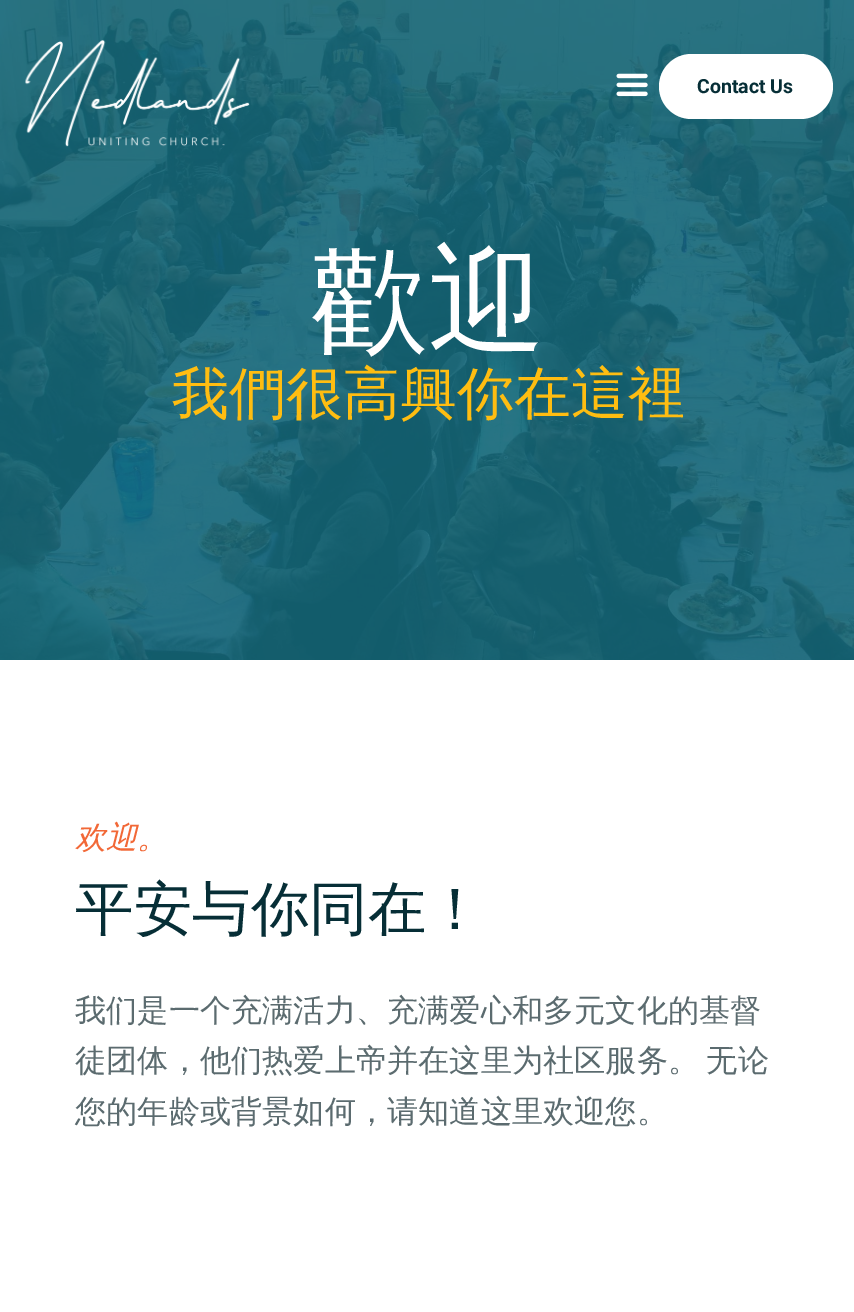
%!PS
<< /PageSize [854 1312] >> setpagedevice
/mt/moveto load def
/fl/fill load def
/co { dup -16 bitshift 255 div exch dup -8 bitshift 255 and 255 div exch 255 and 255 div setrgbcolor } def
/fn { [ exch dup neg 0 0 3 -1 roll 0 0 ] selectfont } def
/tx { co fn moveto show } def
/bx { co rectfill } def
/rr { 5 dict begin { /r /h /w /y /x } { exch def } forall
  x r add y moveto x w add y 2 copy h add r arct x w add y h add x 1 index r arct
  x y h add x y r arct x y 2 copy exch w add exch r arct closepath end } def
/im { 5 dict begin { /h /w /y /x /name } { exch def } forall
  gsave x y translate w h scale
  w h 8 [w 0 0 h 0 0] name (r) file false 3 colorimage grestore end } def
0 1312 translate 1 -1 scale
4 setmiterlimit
0 0 854 1312 16#FFFFFF bx
(media/3.raw) 0 0 854 660 im
(media/1.raw) 25 40 225 107 im
(media/2.raw) 616 73 32 24 im
659 54 174 65 32.5 rr fl
(Contact Us) 697 93 /Roboto-Bold 19.5 16#062E36 tx
(歡迎) 311 341 /WenQuanYiZenHei-Medium 117 16#FFFFFF tx
(我們很高興你在這裡) 172 413 /WenQuanYiZenHei-Medium 57 16#FFBD11 tx
(欢迎。) 75 848 /WenQuanYiZenHei-MediumItalic 31.2 16#F26837 tx
(平安与你同在！) 75 929 /WenQuanYiZenHei-Medium 58.5 16#062E36 tx
(我们是一个充满活力、充满爱心和多元文化的基督) 75 1021 /WenQuanYiZenHei-Medium 31.2 16#5B6B6F tx
75 1071 mt -2 0 32 (徒团体，他们热爱上帝并在这里为社区服务。 无论) widthshow
(您的年龄或背景如何，请知道这里欢迎您。) 75 1122 /WenQuanYiZenHei-Medium 31.2 16#5B6B6F tx
showpage
